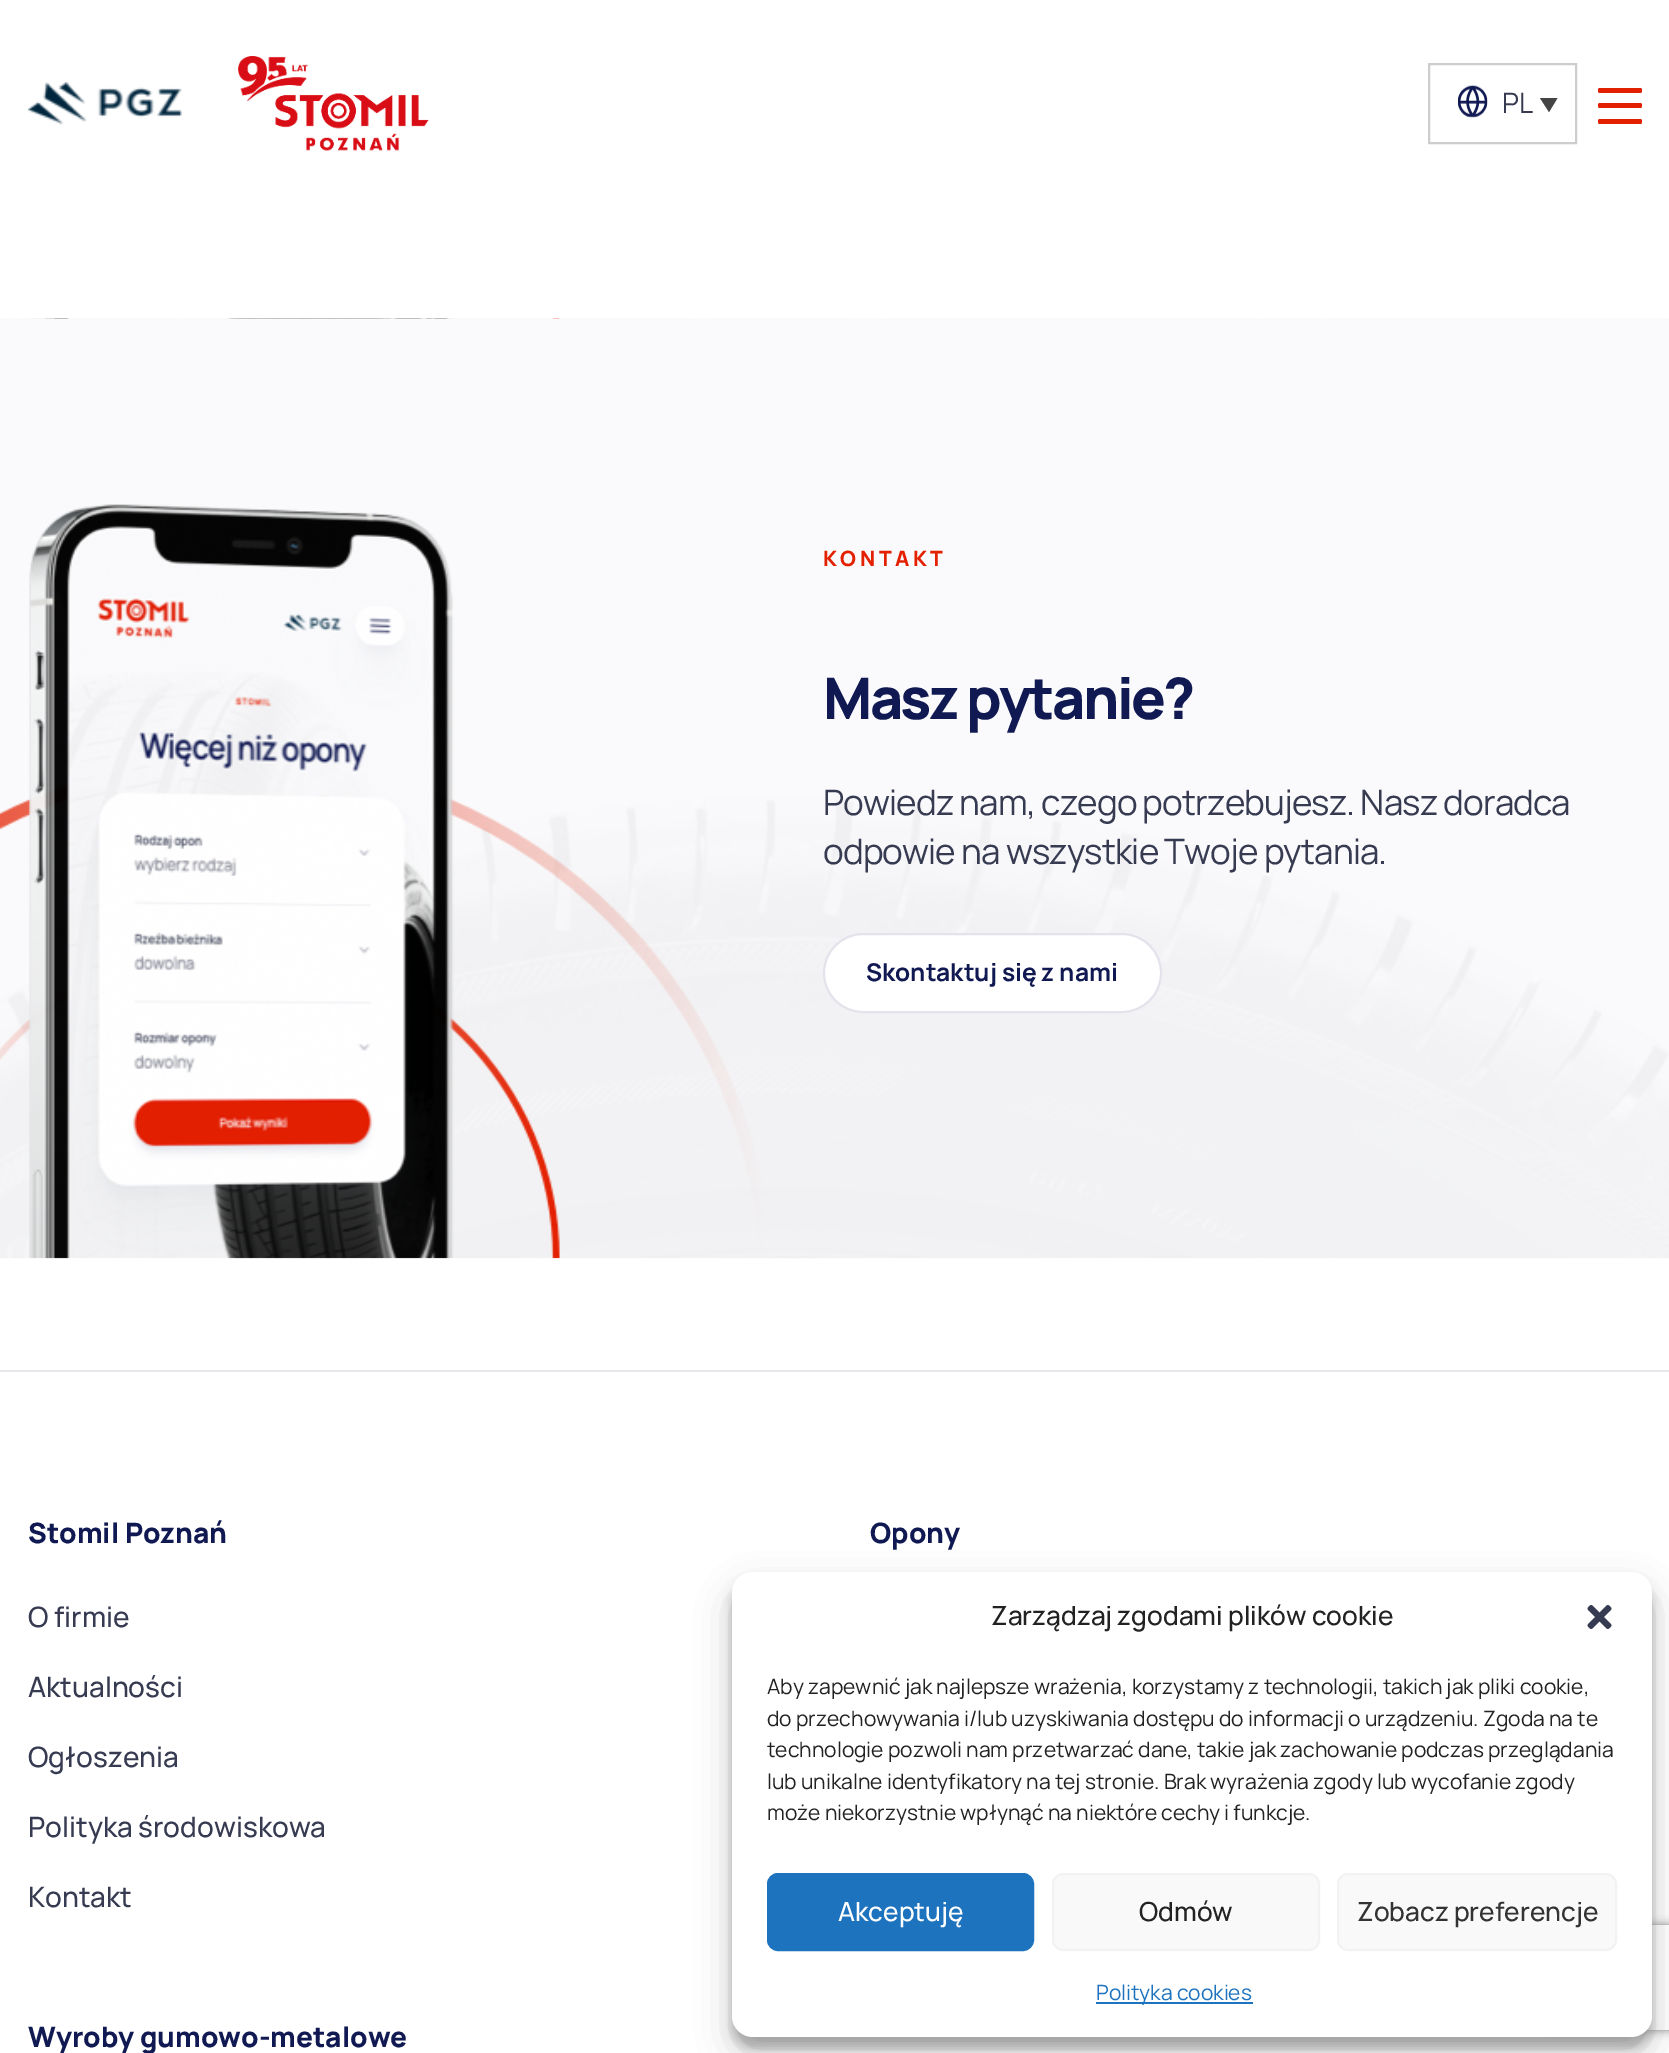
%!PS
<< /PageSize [1669 2053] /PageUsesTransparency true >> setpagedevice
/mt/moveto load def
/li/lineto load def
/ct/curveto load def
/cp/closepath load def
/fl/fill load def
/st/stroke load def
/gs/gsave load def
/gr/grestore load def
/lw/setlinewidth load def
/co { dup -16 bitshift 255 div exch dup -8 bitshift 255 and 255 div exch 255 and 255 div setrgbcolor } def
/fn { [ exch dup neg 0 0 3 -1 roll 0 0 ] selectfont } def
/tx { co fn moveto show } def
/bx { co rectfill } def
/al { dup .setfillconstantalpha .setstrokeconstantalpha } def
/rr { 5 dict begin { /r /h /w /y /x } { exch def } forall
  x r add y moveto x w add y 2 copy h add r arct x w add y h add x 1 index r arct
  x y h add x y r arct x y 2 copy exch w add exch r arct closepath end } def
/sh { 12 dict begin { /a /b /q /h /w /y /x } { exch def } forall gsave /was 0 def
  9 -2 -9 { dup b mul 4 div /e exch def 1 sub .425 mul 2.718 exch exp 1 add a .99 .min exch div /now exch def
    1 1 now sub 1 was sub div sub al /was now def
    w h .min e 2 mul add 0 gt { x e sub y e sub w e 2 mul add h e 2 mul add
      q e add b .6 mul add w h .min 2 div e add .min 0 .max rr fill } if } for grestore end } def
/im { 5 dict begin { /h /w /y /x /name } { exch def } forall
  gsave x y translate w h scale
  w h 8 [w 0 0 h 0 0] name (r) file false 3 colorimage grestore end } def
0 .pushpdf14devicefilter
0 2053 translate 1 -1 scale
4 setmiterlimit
0 0 1669 2053 16#FFFFFF bx
(media/1.raw) 28 82 154 43 im
(media/2.raw) 238 56 191 95 im
16#CDCDCD co
2 lw
1429 64 147 79 rectstroke
(media/3.raw) 1458 85 30 33 im
16#444444 co
1540 98 mt 1557.5 98 li 1549 112 li cp fl
16#E32000 co
1598 88 44 5 2 rr fl
1598 103 44 5 2 rr fl
1598 119 44 5 2 rr fl
(media/4.raw) 0 318 1669 941 im
16#FFFFFF co
824 934 337 78 39 rr gs fl gr
16#E3E4EB co
st
0 1370 1669 2 16#E5E7EB bx
16#000000 co
732 1582 920 466 21 5 .23 sh
732 1589 920 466 21 17.5 .19 sh
gs
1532 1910 mt 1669 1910 li 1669 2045 li 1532 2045 li cp 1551 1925 mt 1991 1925 li 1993 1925 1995 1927 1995 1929 ct 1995 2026 li 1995 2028 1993 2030 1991 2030 ct 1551 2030 li 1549 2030 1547 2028 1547 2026 ct 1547 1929 li 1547 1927 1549 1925 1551 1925 ct cp eoclip newpath
16#808080 co
1547 1925 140 105 4 4.5 1 sh
gr
16#FFFFFF co
732 1572 920 465 21 rr fl
(media/5.raw) 1587 1605 25 24 im
16#1E73BE co
768 1874 265 76 10 rr gs fl gr
st
16#F9F9F9 co
1053 1874 266 76 10 rr gs fl gr
16#F2F2F2 co
st
16#F9F9F9 co
1338 1874 278 76 10 rr gs fl gr
16#F2F2F2 co
st
1096 2002 157 2 16#1E73BE bx
(PL) 1502 113 /Manrope-Regular 28 16#373B52 tx
/Manrope-ExtraBold 21 fn
16#E32000 co
823 566 mt 3.5 0 (KONTAKT) ashow
/Manrope-ExtraBold 57.25 fn
16#101952 co
823 719 mt -2.6 0 (Masz pytanie?) ashow
/Manrope-Regular 35 fn
16#373B52 co
823 815 mt -.9 0 (Powiedz nam, czego potrzebujesz. Nasz doradca) ashow
823 864 mt -.9 0 (odpowie na wszystkie Twoje pytania.) ashow
(Skontaktuj się z nami) 866 981 /Manrope-Bold 24.5 16#101952 tx
(Stomil Poznań) 28 1543 /Manrope-ExtraBold 28 16#101952 tx
(O firmie) 28 1627 /Manrope-Medium 28 16#373B52 tx
(Aktualności) 28 1697 /Manrope-Medium 28 16#373B52 tx
(Ogłoszenia) 28 1767 /Manrope-Medium 28 16#373B52 tx
(Polityka środowiskowa) 28 1837 /Manrope-Medium 28 16#373B52 tx
(Kontakt) 28 1907 /Manrope-Medium 28 16#373B52 tx
(Opony) 870 1543 /Manrope-ExtraBold 28 16#101952 tx
(Wyroby gumowo-metalowe) 28 2047 /Manrope-ExtraBold 28 16#101952 tx
(Zarządzaj zgodami plików cookie) 991 1625 /Manrope-Medium 26.25 16#222222 tx
(Aby zapewnić jak najlepsze wrażenia, korzystamy z technologii, takich jak pliki cookie,) 767 1694 /Manrope-Regular 21 16#222222 tx
(do przechowywania i/lub uzyskiwania dostępu do informacji o urządzeniu. Zgoda na te) 767 1726 /Manrope-Regular 21 16#222222 tx
(technologie pozwoli nam przetwarzać dane, takie jak zachowanie podczas przeglądania) 767 1757 /Manrope-Regular 21 16#222222 tx
(lub unikalne identyfikatory na tej stronie. Brak wyrażenia zgody lub wycofanie zgody) 767 1789 /Manrope-Regular 21 16#222222 tx
(może niekorzystnie wpłynąć na niektóre cechy i funkcje.) 767 1820 /Manrope-Regular 21 16#222222 tx
(Akceptuję) 838 1921 /Manrope-Medium 26.25 16#FFFFFF tx
(Odmów) 1139 1921 /Manrope-Medium 26.25 16#222222 tx
(Zobacz preferencje) 1357 1921 /Manrope-Medium 26.25 16#333333 tx
(Polityka cookies) 1096 2000 /Manrope-Regular 21 16#1E73BE tx
.poppdf14devicefilter showpage
